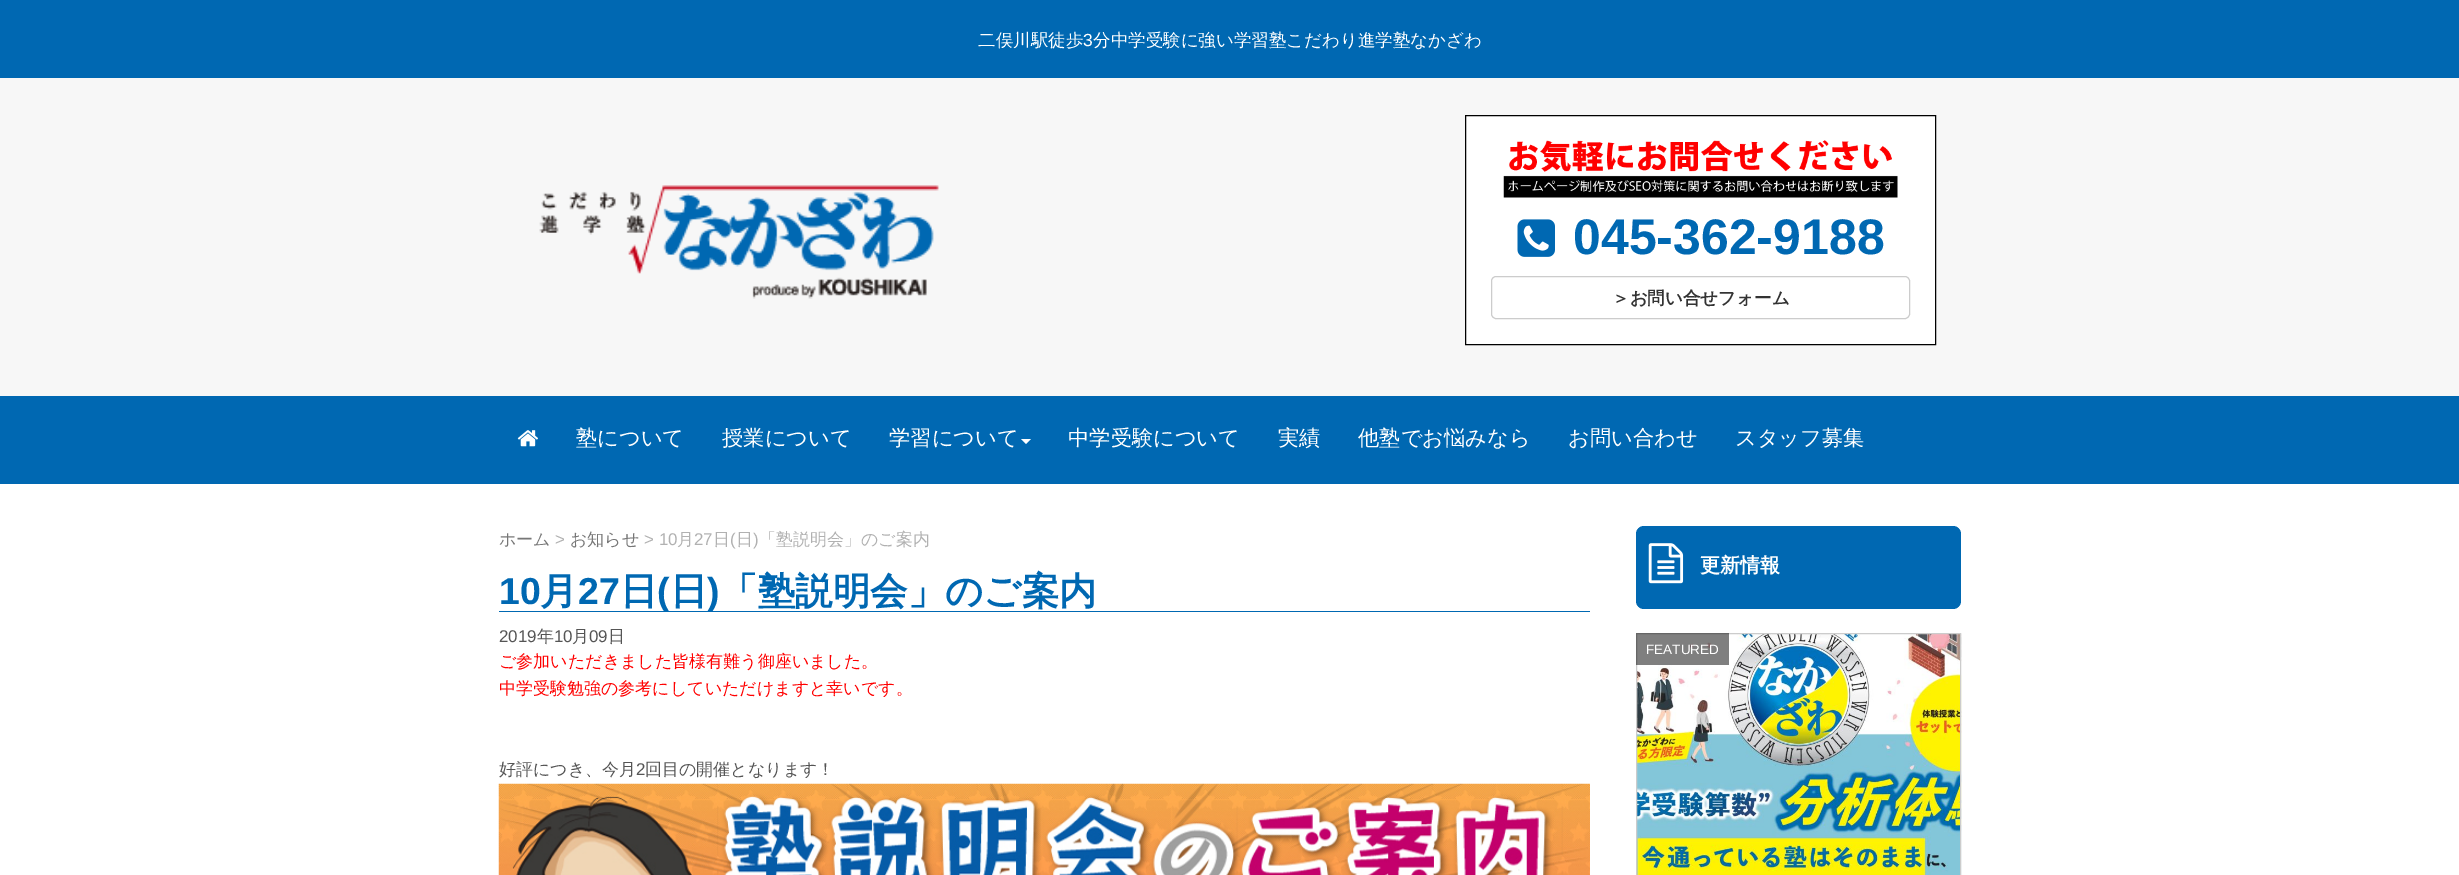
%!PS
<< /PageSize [2459 875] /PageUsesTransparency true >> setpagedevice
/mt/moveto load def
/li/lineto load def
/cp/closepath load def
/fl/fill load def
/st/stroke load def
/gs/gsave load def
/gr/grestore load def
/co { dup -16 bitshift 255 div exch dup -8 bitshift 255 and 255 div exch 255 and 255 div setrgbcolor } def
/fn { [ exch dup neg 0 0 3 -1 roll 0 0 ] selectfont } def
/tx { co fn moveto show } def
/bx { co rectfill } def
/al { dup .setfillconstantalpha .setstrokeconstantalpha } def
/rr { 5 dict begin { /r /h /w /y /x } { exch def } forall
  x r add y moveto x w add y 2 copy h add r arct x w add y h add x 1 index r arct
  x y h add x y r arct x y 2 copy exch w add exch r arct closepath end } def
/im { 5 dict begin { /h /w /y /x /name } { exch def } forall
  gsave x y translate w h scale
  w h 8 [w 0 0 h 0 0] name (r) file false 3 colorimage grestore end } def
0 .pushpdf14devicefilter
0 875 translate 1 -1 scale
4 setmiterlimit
0 0 2459 875 16#FFFFFF bx
0 0 2459 78 16#0068B2 bx
0 78 2459 318 16#F7F7F7 bx
(media/1.raw) 539 185 400 114 im
16#FFFFFF co
1465.5 115.5 mt 1935.5 115.5 li 1935.5 344.5 li 1465.5 344.5 li cp gs fl gr
16#000000 co
st
(media/2.raw) 1503 140 395 58 im
(media/3.raw) 1517 219 38 38 im
16#CCCCCC co
1491.5 276.5 418 42 4.5 rr st
0 396 2459 88 16#0068B2 bx
(media/4.raw) 517 430 21 17 im
16#FFFFFF co
1021 439 mt 1031 439 li 1026 444 li cp fl
499 611 1091 1 16#0068B2 bx
(media/5.raw) 498 783 1092 92 im
1636 526 325 83 8 rr fl
(media/6.raw) 1648 543 36 41 im
(media/7.raw) 1637 634 325 241 im
16#CCCCCC co
1636.5 633.5 324 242 rectstroke
0.5 al
1636 633 93 32 16#000000 bx
1 al
(二俣川駅徒歩) 978 46 /WenQuanYiZenHei-Medium 17.5 16#FFFFFF tx
(3) 1083 46 /LiberationSans-Regular 17.5 16#FFFFFF tx
(分中学受験に強い学習塾こだわり進学塾なかざわ) 1093 46 /WenQuanYiZenHei-Medium 17.5 16#FFFFFF tx
(045-362-9188) 1573 254 /LiberationSans-Bold 50 16#0068B2 tx
(＞お問い合せフォーム) 1612 304 /WenQuanYiZenHei-Bold 17.5 16#333333 tx
(塾について) 576 445 /WenQuanYiZenHei-Medium 21.25 16#FFFFFF tx
(授業について) 722 445 /WenQuanYiZenHei-Medium 21.25 16#FFFFFF tx
(学習について) 889 445 /WenQuanYiZenHei-Medium 21.25 16#FFFFFF tx
(中学受験について) 1068 445 /WenQuanYiZenHei-Medium 21.25 16#FFFFFF tx
(実績) 1278 445 /WenQuanYiZenHei-Medium 21.25 16#FFFFFF tx
(他塾でお悩みなら) 1358 445 /WenQuanYiZenHei-Medium 21.25 16#FFFFFF tx
(お問い合わせ) 1568 445 /WenQuanYiZenHei-Medium 21.25 16#FFFFFF tx
(スタッフ募集) 1735 445 /WenQuanYiZenHei-Medium 21.25 16#FFFFFF tx
(ホーム) 499 545 /WenQuanYiZenHei-Medium 17 16#777777 tx
(>) 555 545 /LiberationSans-Regular 17 16#B1B1B1 tx
(お知らせ) 570 545 /WenQuanYiZenHei-Medium 17 16#777777 tx
(> 10) 644 545 /LiberationSans-Regular 17 16#B1B1B1 tx
(月) 677 545 /WenQuanYiZenHei-Medium 17 16#B1B1B1 tx
(27) 694 545 /LiberationSans-Regular 17 16#B1B1B1 tx
(日) 713 545 /WenQuanYiZenHei-Medium 17 16#B1B1B1 tx
(\() 730 545 /LiberationSans-Regular 17 16#B1B1B1 tx
(日) 736 545 /WenQuanYiZenHei-Medium 17 16#B1B1B1 tx
(\)) 753 545 /LiberationSans-Regular 17 16#B1B1B1 tx
(「塾説明会」のご案内) 759 545 /WenQuanYiZenHei-Medium 17 16#B1B1B1 tx
(10) 499 604 /LiberationSans-Bold 37.5 16#0068B2 tx
(月) 540 604 /WenQuanYiZenHei-Bold 37.5 16#0068B2 tx
(27) 578 604 /LiberationSans-Bold 37.5 16#0068B2 tx
(日) 620 604 /WenQuanYiZenHei-Bold 37.5 16#0068B2 tx
(\() 657 604 /LiberationSans-Bold 37.5 16#0068B2 tx
(日) 670 604 /WenQuanYiZenHei-Bold 37.5 16#0068B2 tx
(\)) 707 604 /LiberationSans-Bold 37.5 16#0068B2 tx
(「塾説明会」のご案内) 720 604 /WenQuanYiZenHei-Bold 37.5 16#0068B2 tx
(2019) 499 642 /LiberationSans-Regular 17 16#555555 tx
(年) 537 642 /WenQuanYiZenHei-Medium 17 16#555555 tx
(10) 554 642 /LiberationSans-Regular 17 16#555555 tx
(月) 572 642 /WenQuanYiZenHei-Medium 17 16#555555 tx
(09) 589 642 /LiberationSans-Regular 17 16#555555 tx
(日) 608 642 /WenQuanYiZenHei-Medium 17 16#555555 tx
(ご参加いただきました皆様有難う御座いました。) 499 667 /WenQuanYiZenHei-Medium 17 16#FF0000 tx
(中学受験勉強の参考にしていただけますと幸いです。) 499 694 /WenQuanYiZenHei-Medium 17 16#FF0000 tx
(好評につき、今月) 499 775 /WenQuanYiZenHei-Medium 17 16#555555 tx
(2) 636 775 /LiberationSans-Regular 17 16#555555 tx
(回目の開催となります！) 645 775 /WenQuanYiZenHei-Medium 17 16#555555 tx
(更新情報) 1700 572 /WenQuanYiZenHei-Bold 20 16#FFFFFF tx
(FEATURED) 1646 654 /LiberationSans-Regular 13.5 16#FFFFFF tx
.poppdf14devicefilter showpage
